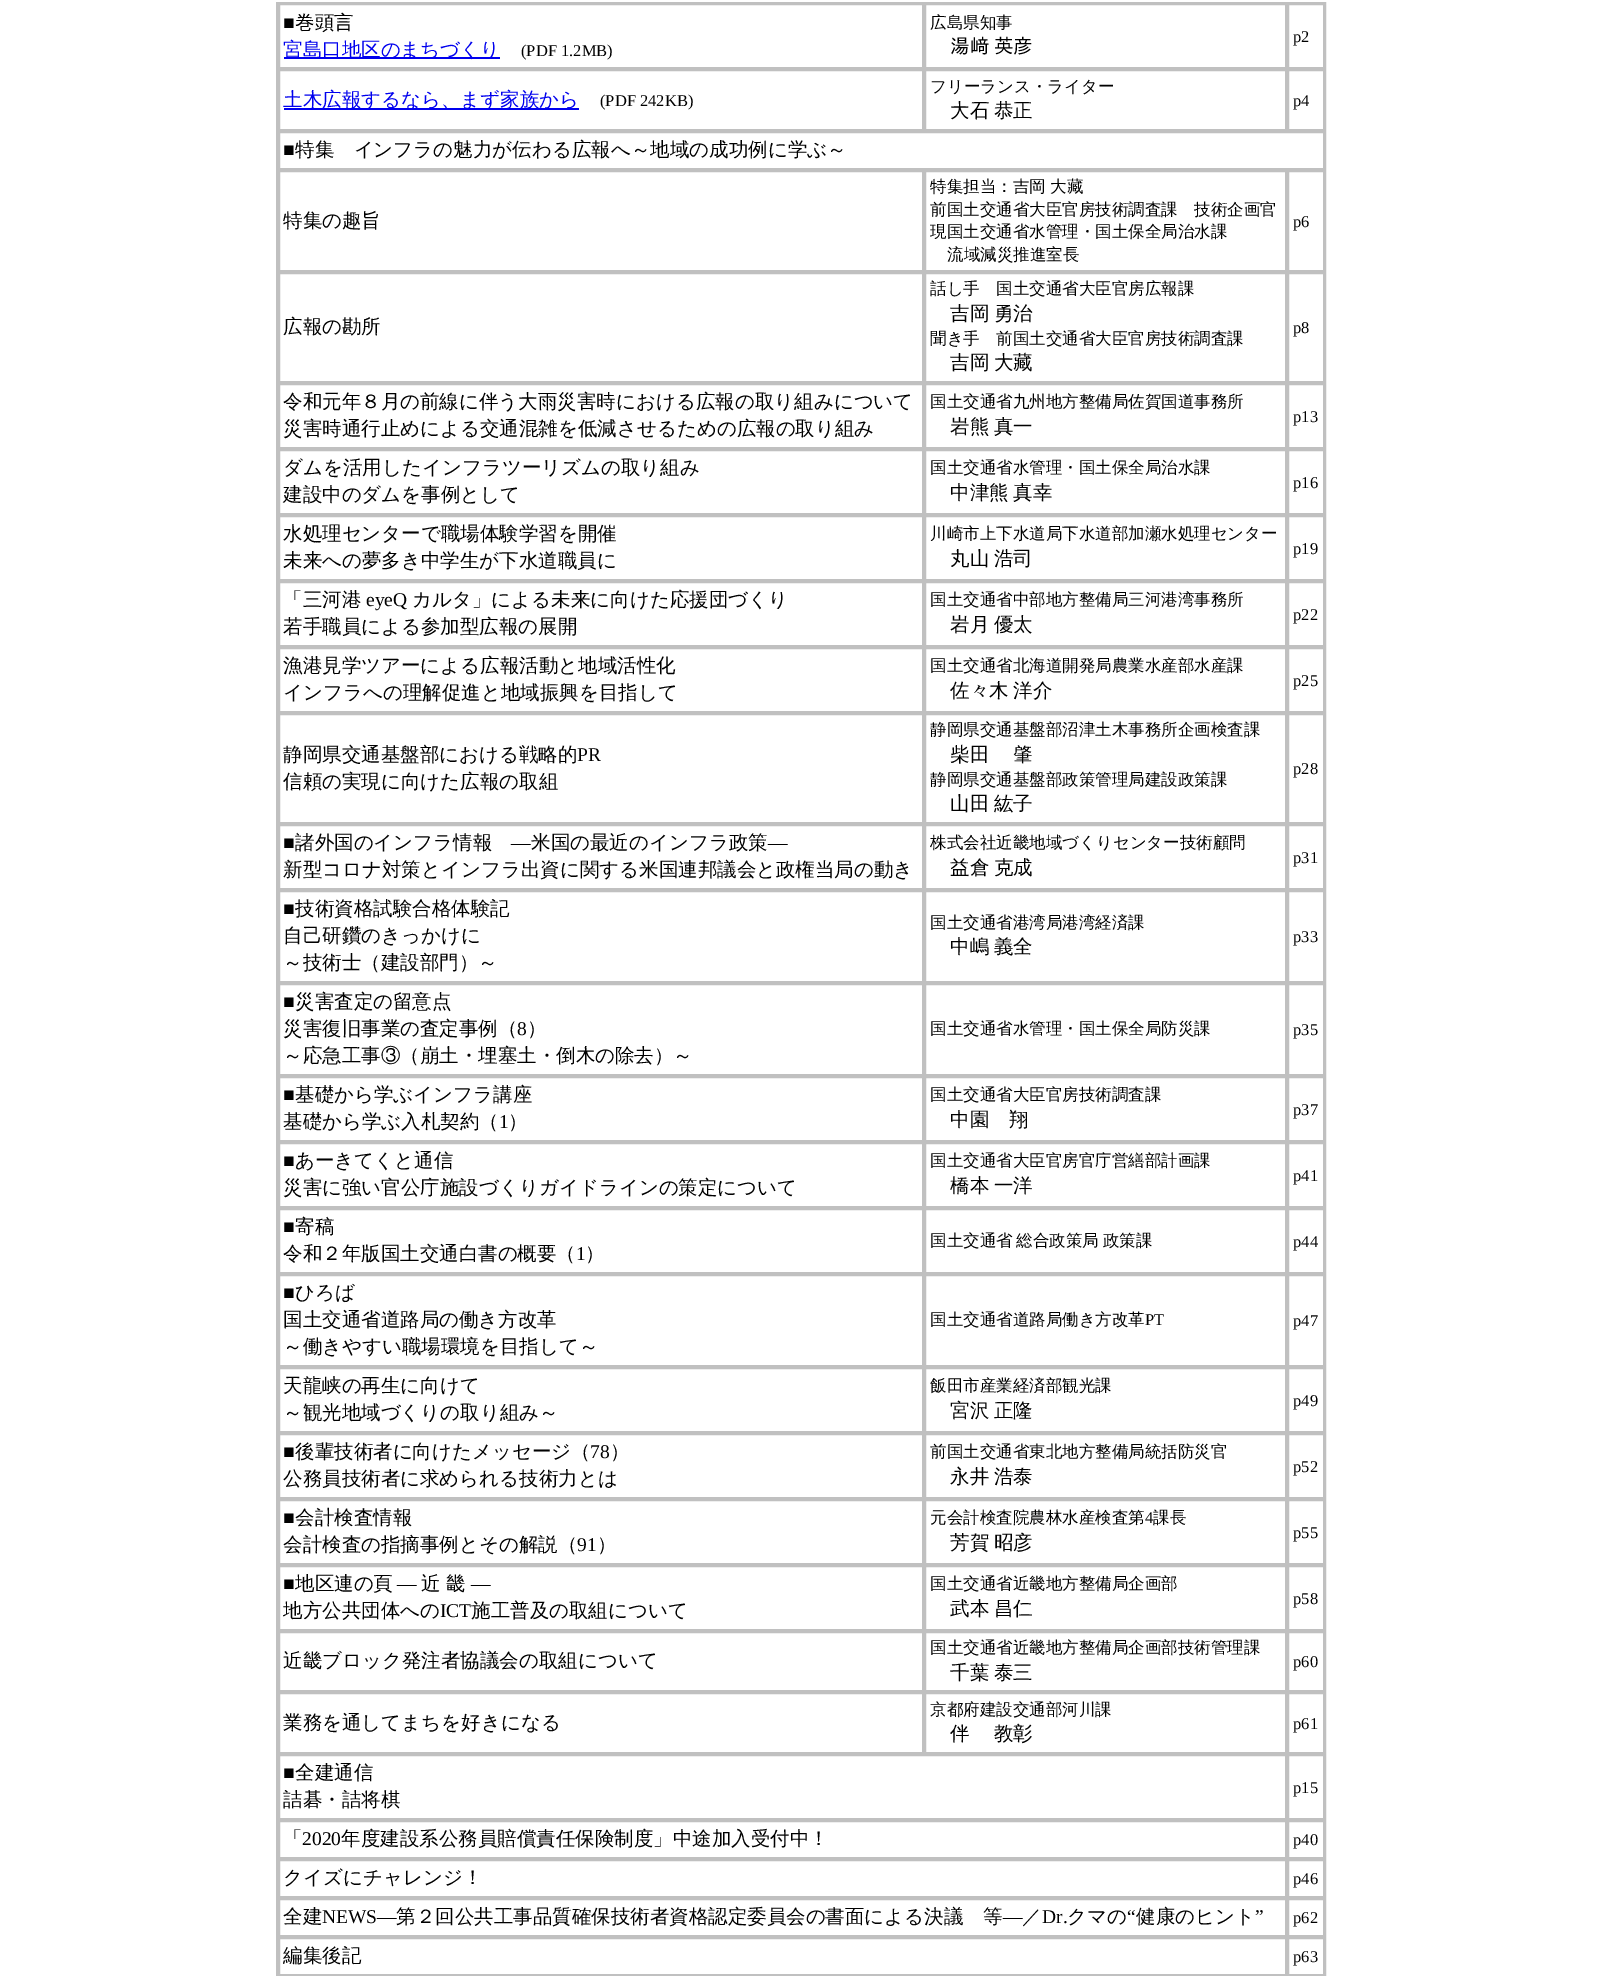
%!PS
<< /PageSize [1600 1976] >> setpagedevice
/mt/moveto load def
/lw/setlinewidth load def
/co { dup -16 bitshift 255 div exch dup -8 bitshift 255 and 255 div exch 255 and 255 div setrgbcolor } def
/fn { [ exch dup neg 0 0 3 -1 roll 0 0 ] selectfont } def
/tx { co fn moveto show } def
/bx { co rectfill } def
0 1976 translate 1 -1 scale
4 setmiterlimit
0 0 1600 1976 16#FFFFFF bx
16#C0C0C0 co
2 lw
277 3 1048 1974 rectstroke
279 4 644 64 rectstroke
284 57 216 2 16#0000EE bx
16#C0C0C0 co
925 4 361 64 rectstroke
1288 4 36 64 rectstroke
279 70 644 60 rectstroke
284 108 295 2 16#0000EE bx
16#C0C0C0 co
925 70 361 60 rectstroke
1288 70 36 60 rectstroke
279 132 1045 37 rectstroke
279 171 644 100 rectstroke
925 171 361 100 rectstroke
1288 171 36 100 rectstroke
279 273 644 109 rectstroke
925 273 361 109 rectstroke
1288 273 36 109 rectstroke
279 384 644 64 rectstroke
925 384 361 64 rectstroke
1288 384 36 64 rectstroke
279 450 644 64 rectstroke
925 450 361 64 rectstroke
1288 450 36 64 rectstroke
279 516 644 64 rectstroke
925 516 361 64 rectstroke
1288 516 36 64 rectstroke
279 582 644 64 rectstroke
925 582 361 64 rectstroke
1288 582 36 64 rectstroke
279 648 644 64 rectstroke
925 648 361 64 rectstroke
1288 648 36 64 rectstroke
279 714 644 109 rectstroke
925 714 361 109 rectstroke
1288 714 36 109 rectstroke
279 825 644 64 rectstroke
925 825 361 64 rectstroke
1288 825 36 64 rectstroke
279 891 644 91 rectstroke
925 891 361 91 rectstroke
1288 891 36 91 rectstroke
279 984 644 91 rectstroke
925 984 361 91 rectstroke
1288 984 36 91 rectstroke
279 1077 644 64 rectstroke
925 1077 361 64 rectstroke
1288 1077 36 64 rectstroke
279 1143 644 64 rectstroke
925 1143 361 64 rectstroke
1288 1143 36 64 rectstroke
279 1209 644 64 rectstroke
925 1209 361 64 rectstroke
1288 1209 36 64 rectstroke
279 1275 644 91 rectstroke
925 1275 361 91 rectstroke
1288 1275 36 91 rectstroke
279 1368 644 64 rectstroke
925 1368 361 64 rectstroke
1288 1368 36 64 rectstroke
279 1434 644 64 rectstroke
925 1434 361 64 rectstroke
1288 1434 36 64 rectstroke
279 1500 644 64 rectstroke
925 1500 361 64 rectstroke
1288 1500 36 64 rectstroke
279 1566 644 64 rectstroke
925 1566 361 64 rectstroke
1288 1566 36 64 rectstroke
279 1632 644 59 rectstroke
925 1632 361 59 rectstroke
1288 1632 36 59 rectstroke
279 1693 644 60 rectstroke
925 1693 361 60 rectstroke
1288 1693 36 60 rectstroke
279 1755 1007 64 rectstroke
1288 1755 36 64 rectstroke
279 1821 1007 37 rectstroke
1288 1821 36 37 rectstroke
279 1860 1007 37 rectstroke
1288 1860 36 37 rectstroke
279 1899 1007 37 rectstroke
1288 1899 36 37 rectstroke
279 1938 1007 37 rectstroke
1288 1938 36 37 rectstroke
(■) 283 29 /LiberationSerif-Regular 19.5 16#000000 tx
(巻頭言) 295 29 /WenQuanYiZenHei-Medium 19.5 16#000000 tx
(宮島口地区のまちづくり) 283 56 /WenQuanYiZenHei-Medium 19.5 16#0000EE tx
(\(PDF 1.2MB\)) 521 56 /LiberationSerif-Regular 16.5 16#000000 tx
(広島県知事) 930 28 /WenQuanYiZenHei-Medium 16.5 16#000000 tx
/IPAGothic-Regular 19.5 fn
950 53 mt -5 0 32 (湯﨑 英彦) widthshow
(p2) 1293 42 /LiberationSerif-Regular 16.5 16#000000 tx
(土木広報するなら、まず家族から) 283 106 /WenQuanYiZenHei-Medium 19.5 16#0000EE tx
(\(PDF 242KB\)) 600 106 /LiberationSerif-Regular 16.5 16#000000 tx
(フリーランス・ライター) 930 92 /WenQuanYiZenHei-Medium 16.5 16#000000 tx
/WenQuanYiZenHei-Medium 19.5 fn
950 117 mt -1 0 32 (大石 恭正) widthshow
(p4) 1293 106 /LiberationSerif-Regular 16.5 16#000000 tx
(■) 283 156 /LiberationSerif-Regular 19.5 16#000000 tx
(特集　インフラの魅力が伝わる広報へ～地域の成功例に学ぶ～) 295 156 /WenQuanYiZenHei-Medium 19.5 16#000000 tx
(特集の趣旨) 283 227 /WenQuanYiZenHei-Medium 19.5 16#000000 tx
(特集担当：吉岡) 930 192 /WenQuanYiZenHei-Medium 16.5 16#000000 tx
(大藏) 1050 192 /WenQuanYiZenHei-Medium 16.5 16#000000 tx
(前国土交通省大臣官房技術調査課　技術企画官) 930 215 /WenQuanYiZenHei-Medium 16.5 16#000000 tx
(現国土交通省水管理・国土保全局治水課) 930 237 /WenQuanYiZenHei-Medium 16.5 16#000000 tx
(流域減災推進室長) 947 260 /WenQuanYiZenHei-Medium 16.5 16#000000 tx
(p6) 1293 227 /LiberationSerif-Regular 16.5 16#000000 tx
(広報の勘所) 283 333 /WenQuanYiZenHei-Medium 19.5 16#000000 tx
(話し手　国土交通省大臣官房広報課) 930 294 /WenQuanYiZenHei-Medium 16.5 16#000000 tx
/WenQuanYiZenHei-Medium 19.5 fn
950 320 mt -1 0 32 (吉岡 勇治) widthshow
(聞き手　前国土交通省大臣官房技術調査課) 930 344 /WenQuanYiZenHei-Medium 16.5 16#000000 tx
/WenQuanYiZenHei-Medium 19.5 fn
950 369 mt -1 0 32 (吉岡 大藏) widthshow
(p8) 1293 333 /LiberationSerif-Regular 16.5 16#000000 tx
(令和元年８月の前線に伴う大雨災害時における広報の取り組みについて) 283 408 /WenQuanYiZenHei-Medium 19.5 16#000000 tx
(災害時通行止めによる交通混雑を低減させるための広報の取り組み) 283 435 /WenQuanYiZenHei-Medium 19.5 16#000000 tx
(国土交通省九州地方整備局佐賀国道事務所) 930 407 /WenQuanYiZenHei-Medium 16.5 16#000000 tx
/WenQuanYiZenHei-Medium 19.5 fn
950 433 mt -1 0 32 (岩熊 真一) widthshow
(p13) 1293 422 /LiberationSerif-Regular 16.5 16#000000 tx
(ダムを活用したインフラツーリズムの取り組み) 283 474 /WenQuanYiZenHei-Medium 19.5 16#000000 tx
(建設中のダムを事例として) 283 501 /WenQuanYiZenHei-Medium 19.5 16#000000 tx
(国土交通省水管理・国土保全局治水課) 930 473 /WenQuanYiZenHei-Medium 16.5 16#000000 tx
/WenQuanYiZenHei-Medium 19.5 fn
950 499 mt -1 0 32 (中津熊 真幸) widthshow
(p16) 1293 488 /LiberationSerif-Regular 16.5 16#000000 tx
(水処理センターで職場体験学習を開催) 283 540 /WenQuanYiZenHei-Medium 19.5 16#000000 tx
(未来への夢多き中学生が下水道職員に) 283 567 /WenQuanYiZenHei-Medium 19.5 16#000000 tx
(川崎市上下水道局下水道部加瀬水処理センター) 930 539 /WenQuanYiZenHei-Medium 16.5 16#000000 tx
/WenQuanYiZenHei-Medium 19.5 fn
950 565 mt -1 0 32 (丸山 浩司) widthshow
(p19) 1293 554 /LiberationSerif-Regular 16.5 16#000000 tx
(「三河港) 283 606 /WenQuanYiZenHei-Medium 19.5 16#000000 tx
(eyeQ) 366 606 /LiberationSerif-Regular 19.5 16#000000 tx
(カルタ」による未来に向けた応援団づくり) 412 606 /WenQuanYiZenHei-Medium 19.5 16#000000 tx
(若手職員による参加型広報の展開) 283 633 /WenQuanYiZenHei-Medium 19.5 16#000000 tx
(国土交通省中部地方整備局三河港湾事務所) 930 605 /WenQuanYiZenHei-Medium 16.5 16#000000 tx
/WenQuanYiZenHei-Medium 19.5 fn
950 631 mt -1 0 32 (岩月 優太) widthshow
(p22) 1293 620 /LiberationSerif-Regular 16.5 16#000000 tx
(漁港見学ツアーによる広報活動と地域活性化) 283 672 /WenQuanYiZenHei-Medium 19.5 16#000000 tx
(インフラへの理解促進と地域振興を目指して) 283 699 /WenQuanYiZenHei-Medium 19.5 16#000000 tx
(国土交通省北海道開発局農業水産部水産課) 930 671 /WenQuanYiZenHei-Medium 16.5 16#000000 tx
/WenQuanYiZenHei-Medium 19.5 fn
950 697 mt -1 0 32 (佐々木 洋介) widthshow
(p25) 1293 686 /LiberationSerif-Regular 16.5 16#000000 tx
(静岡県交通基盤部における戦略的) 283 761 /WenQuanYiZenHei-Medium 19.5 16#000000 tx
(PR) 577 761 /LiberationSerif-Regular 19.5 16#000000 tx
(信頼の実現に向けた広報の取組) 283 788 /WenQuanYiZenHei-Medium 19.5 16#000000 tx
(静岡県交通基盤部沼津土木事務所企画検査課) 930 735 /WenQuanYiZenHei-Medium 16.5 16#000000 tx
/WenQuanYiZenHei-Medium 19.5 fn
950 761 mt -1 0 32 (柴田 　肇) widthshow
(静岡県交通基盤部政策管理局建設政策課) 930 785 /WenQuanYiZenHei-Medium 16.5 16#000000 tx
/WenQuanYiZenHei-Medium 19.5 fn
950 810 mt -1 0 32 (山田 紘子) widthshow
(p28) 1293 774 /LiberationSerif-Regular 16.5 16#000000 tx
(■) 283 849 /LiberationSerif-Regular 19.5 16#000000 tx
(諸外国のインフラ情報) 295 849 /WenQuanYiZenHei-Medium 19.5 16#000000 tx
(―) 511 849 /LiberationSerif-Regular 19.5 16#000000 tx
(米国の最近のインフラ政策) 531 849 /WenQuanYiZenHei-Medium 19.5 16#000000 tx
(―) 768 849 /LiberationSerif-Regular 19.5 16#000000 tx
(新型コロナ対策とインフラ出資に関する米国連邦議会と政権当局の動き) 283 876 /WenQuanYiZenHei-Medium 19.5 16#000000 tx
(株式会社近畿地域づくりセンター技術顧問) 930 848 /WenQuanYiZenHei-Medium 16.5 16#000000 tx
/WenQuanYiZenHei-Medium 19.5 fn
950 874 mt -1 0 32 (益倉 克成) widthshow
(p31) 1293 863 /LiberationSerif-Regular 16.5 16#000000 tx
(■) 283 915 /LiberationSerif-Regular 19.5 16#000000 tx
(技術資格試験合格体験記) 295 915 /WenQuanYiZenHei-Medium 19.5 16#000000 tx
(自己研鑽のきっかけに) 283 942 /WenQuanYiZenHei-Medium 19.5 16#000000 tx
(～技術士（建設部門）～) 283 969 /WenQuanYiZenHei-Medium 19.5 16#000000 tx
(国土交通省港湾局港湾経済課) 930 928 /WenQuanYiZenHei-Medium 16.5 16#000000 tx
/WenQuanYiZenHei-Medium 19.5 fn
950 953 mt -1 0 32 (中嶋 義全) widthshow
(p33) 1293 942 /LiberationSerif-Regular 16.5 16#000000 tx
(■) 283 1008 /LiberationSerif-Regular 19.5 16#000000 tx
(災害査定の留意点) 295 1008 /WenQuanYiZenHei-Medium 19.5 16#000000 tx
(災害復旧事業の査定事例（) 283 1035 /WenQuanYiZenHei-Medium 19.5 16#000000 tx
(8) 517 1035 /LiberationSerif-Regular 19.5 16#000000 tx
(）) 527 1035 /WenQuanYiZenHei-Medium 19.5 16#000000 tx
(～応急工事③（崩土・埋塞土・倒木の除去）～) 283 1062 /WenQuanYiZenHei-Medium 19.5 16#000000 tx
(国土交通省水管理・国土保全局防災課) 930 1034 /WenQuanYiZenHei-Medium 16.5 16#000000 tx
(p35) 1293 1035 /LiberationSerif-Regular 16.5 16#000000 tx
(■) 283 1101 /LiberationSerif-Regular 19.5 16#000000 tx
(基礎から学ぶインフラ講座) 295 1101 /WenQuanYiZenHei-Medium 19.5 16#000000 tx
(基礎から学ぶ入札契約（) 283 1128 /WenQuanYiZenHei-Medium 19.5 16#000000 tx
(1) 499 1128 /LiberationSerif-Regular 19.5 16#000000 tx
(）) 508 1128 /WenQuanYiZenHei-Medium 19.5 16#000000 tx
(国土交通省大臣官房技術調査課) 930 1100 /WenQuanYiZenHei-Medium 16.5 16#000000 tx
(中園　翔) 950 1126 /WenQuanYiZenHei-Medium 19.5 16#000000 tx
(p37) 1293 1115 /LiberationSerif-Regular 16.5 16#000000 tx
(■) 283 1167 /LiberationSerif-Regular 19.5 16#000000 tx
(あーきてくと通信) 295 1167 /WenQuanYiZenHei-Medium 19.5 16#000000 tx
(災害に強い官公庁施設づくりガイドラインの策定について) 283 1194 /WenQuanYiZenHei-Medium 19.5 16#000000 tx
(国土交通省大臣官房官庁営繕部計画課) 930 1166 /WenQuanYiZenHei-Medium 16.5 16#000000 tx
/WenQuanYiZenHei-Medium 19.5 fn
950 1192 mt -1 0 32 (橋本 一洋) widthshow
(p41) 1293 1181 /LiberationSerif-Regular 16.5 16#000000 tx
(■) 283 1233 /LiberationSerif-Regular 19.5 16#000000 tx
(寄稿) 295 1233 /WenQuanYiZenHei-Medium 19.5 16#000000 tx
(令和２年版国土交通白書の概要（) 283 1260 /WenQuanYiZenHei-Medium 19.5 16#000000 tx
(1) 576 1260 /LiberationSerif-Regular 19.5 16#000000 tx
(）) 585 1260 /WenQuanYiZenHei-Medium 19.5 16#000000 tx
/WenQuanYiZenHei-Medium 16.5 fn
930 1246 mt -1 0 32 (国土交通省 総合政策局 政策課) widthshow
(p44) 1293 1247 /LiberationSerif-Regular 16.5 16#000000 tx
(■) 283 1299 /LiberationSerif-Regular 19.5 16#000000 tx
(ひろば) 295 1299 /WenQuanYiZenHei-Medium 19.5 16#000000 tx
(国土交通省道路局の働き方改革) 283 1326 /WenQuanYiZenHei-Medium 19.5 16#000000 tx
(～働きやすい職場環境を目指して～) 283 1353 /WenQuanYiZenHei-Medium 19.5 16#000000 tx
(国土交通省道路局働き方改革) 930 1325 /WenQuanYiZenHei-Medium 16.5 16#000000 tx
(PT) 1145 1325 /LiberationSerif-Regular 16.5 16#000000 tx
(p47) 1293 1326 /LiberationSerif-Regular 16.5 16#000000 tx
(天龍峡の再生に向けて) 283 1392 /WenQuanYiZenHei-Medium 19.5 16#000000 tx
(～観光地域づくりの取り組み～) 283 1419 /WenQuanYiZenHei-Medium 19.5 16#000000 tx
(飯田市産業経済部観光課) 930 1391 /WenQuanYiZenHei-Medium 16.5 16#000000 tx
/WenQuanYiZenHei-Medium 19.5 fn
950 1417 mt -1 0 32 (宮沢 正隆) widthshow
(p49) 1293 1406 /LiberationSerif-Regular 16.5 16#000000 tx
(■) 283 1458 /LiberationSerif-Regular 19.5 16#000000 tx
(後輩技術者に向けたメッセージ（) 295 1458 /WenQuanYiZenHei-Medium 19.5 16#000000 tx
(78) 590 1458 /LiberationSerif-Regular 19.5 16#000000 tx
(）) 610 1458 /WenQuanYiZenHei-Medium 19.5 16#000000 tx
(公務員技術者に求められる技術力とは) 283 1485 /WenQuanYiZenHei-Medium 19.5 16#000000 tx
(前国土交通省東北地方整備局統括防災官) 930 1457 /WenQuanYiZenHei-Medium 16.5 16#000000 tx
/WenQuanYiZenHei-Medium 19.5 fn
950 1483 mt -1 0 32 (永井 浩泰) widthshow
(p52) 1293 1472 /LiberationSerif-Regular 16.5 16#000000 tx
(■) 283 1524 /LiberationSerif-Regular 19.5 16#000000 tx
(会計検査情報) 295 1524 /WenQuanYiZenHei-Medium 19.5 16#000000 tx
(会計検査の指摘事例とその解説（) 283 1551 /WenQuanYiZenHei-Medium 19.5 16#000000 tx
(91) 577 1551 /LiberationSerif-Regular 19.5 16#000000 tx
(）) 597 1551 /WenQuanYiZenHei-Medium 19.5 16#000000 tx
(元会計検査院農林水産検査第) 930 1523 /WenQuanYiZenHei-Medium 16.5 16#000000 tx
(4) 1145 1523 /LiberationSerif-Regular 16.5 16#000000 tx
(課長) 1153 1523 /WenQuanYiZenHei-Medium 16.5 16#000000 tx
/WenQuanYiZenHei-Medium 19.5 fn
950 1549 mt -1 0 32 (芳賀 昭彦) widthshow
(p55) 1293 1538 /LiberationSerif-Regular 16.5 16#000000 tx
(■) 283 1590 /LiberationSerif-Regular 19.5 16#000000 tx
(地区連の頁) 295 1590 /WenQuanYiZenHei-Medium 19.5 16#000000 tx
(―) 397 1590 /LiberationSerif-Regular 19.5 16#000000 tx
(近 畿) 421 1590 /WenQuanYiZenHei-Medium 19.5 16#000000 tx
(―) 471 1590 /LiberationSerif-Regular 19.5 16#000000 tx
(地方公共団体への) 283 1617 /WenQuanYiZenHei-Medium 19.5 16#000000 tx
(ICT) 440 1617 /LiberationSerif-Regular 19.5 16#000000 tx
(施工普及の取組について) 471 1617 /WenQuanYiZenHei-Medium 19.5 16#000000 tx
(国土交通省近畿地方整備局企画部) 930 1589 /WenQuanYiZenHei-Medium 16.5 16#000000 tx
/WenQuanYiZenHei-Medium 19.5 fn
950 1615 mt -1 0 32 (武本 昌仁) widthshow
(p58) 1293 1604 /LiberationSerif-Regular 16.5 16#000000 tx
(近畿ブロック発注者協議会の取組について) 283 1667 /WenQuanYiZenHei-Medium 19.5 16#000000 tx
(国土交通省近畿地方整備局企画部技術管理課) 930 1653 /WenQuanYiZenHei-Medium 16.5 16#000000 tx
/WenQuanYiZenHei-Medium 19.5 fn
950 1679 mt -1 0 32 (千葉 泰三) widthshow
(p60) 1293 1667 /LiberationSerif-Regular 16.5 16#000000 tx
(業務を通してまちを好きになる) 283 1729 /WenQuanYiZenHei-Medium 19.5 16#000000 tx
(京都府建設交通部河川課) 930 1715 /WenQuanYiZenHei-Medium 16.5 16#000000 tx
/WenQuanYiZenHei-Medium 19.5 fn
950 1740 mt -1 0 32 (伴 　教彰) widthshow
(p61) 1293 1729 /LiberationSerif-Regular 16.5 16#000000 tx
(■) 283 1779 /LiberationSerif-Regular 19.5 16#000000 tx
(全建通信) 295 1779 /WenQuanYiZenHei-Medium 19.5 16#000000 tx
(詰碁・詰将棋) 283 1806 /WenQuanYiZenHei-Medium 19.5 16#000000 tx
(p15) 1293 1793 /LiberationSerif-Regular 16.5 16#000000 tx
(「) 283 1845 /WenQuanYiZenHei-Medium 19.5 16#000000 tx
(2020) 302 1845 /LiberationSerif-Regular 19.5 16#000000 tx
(年度建設系公務員賠償責任保険制度」中途加入受付中！) 341 1845 /WenQuanYiZenHei-Medium 19.5 16#000000 tx
(p40) 1293 1845 /LiberationSerif-Regular 16.5 16#000000 tx
(クイズにチャレンジ！) 283 1884 /WenQuanYiZenHei-Medium 19.5 16#000000 tx
(p46) 1293 1884 /LiberationSerif-Regular 16.5 16#000000 tx
(全建) 283 1923 /WenQuanYiZenHei-Medium 19.5 16#000000 tx
(NEWS―) 322 1923 /LiberationSerif-Regular 19.5 16#000000 tx
(第２回公共工事品質確保技術者資格認定委員会の書面による決議　等) 396 1923 /WenQuanYiZenHei-Medium 19.5 16#000000 tx
(／) 1022 1923 /WenQuanYiZenHei-Medium 19.5 16#000000 tx
(Dr.) 1042 1923 /LiberationSerif-Regular 19.5 16#000000 tx
(クマの) 1067 1923 /WenQuanYiZenHei-Medium 19.5 16#000000 tx
(“) 1127 1923 /LiberationSerif-Regular 19.5 16#000000 tx
(健康のヒント) 1136 1923 /WenQuanYiZenHei-Medium 19.5 16#000000 tx
(”) 1255 1923 /LiberationSerif-Regular 19.5 16#000000 tx
(―) 1003 1923 /LiberationSerif-Regular 19.5 16#000000 tx
(p62) 1293 1923 /LiberationSerif-Regular 16.5 16#000000 tx
(編集後記) 283 1962 /WenQuanYiZenHei-Medium 19.5 16#000000 tx
(p63) 1293 1962 /LiberationSerif-Regular 16.5 16#000000 tx
showpage
